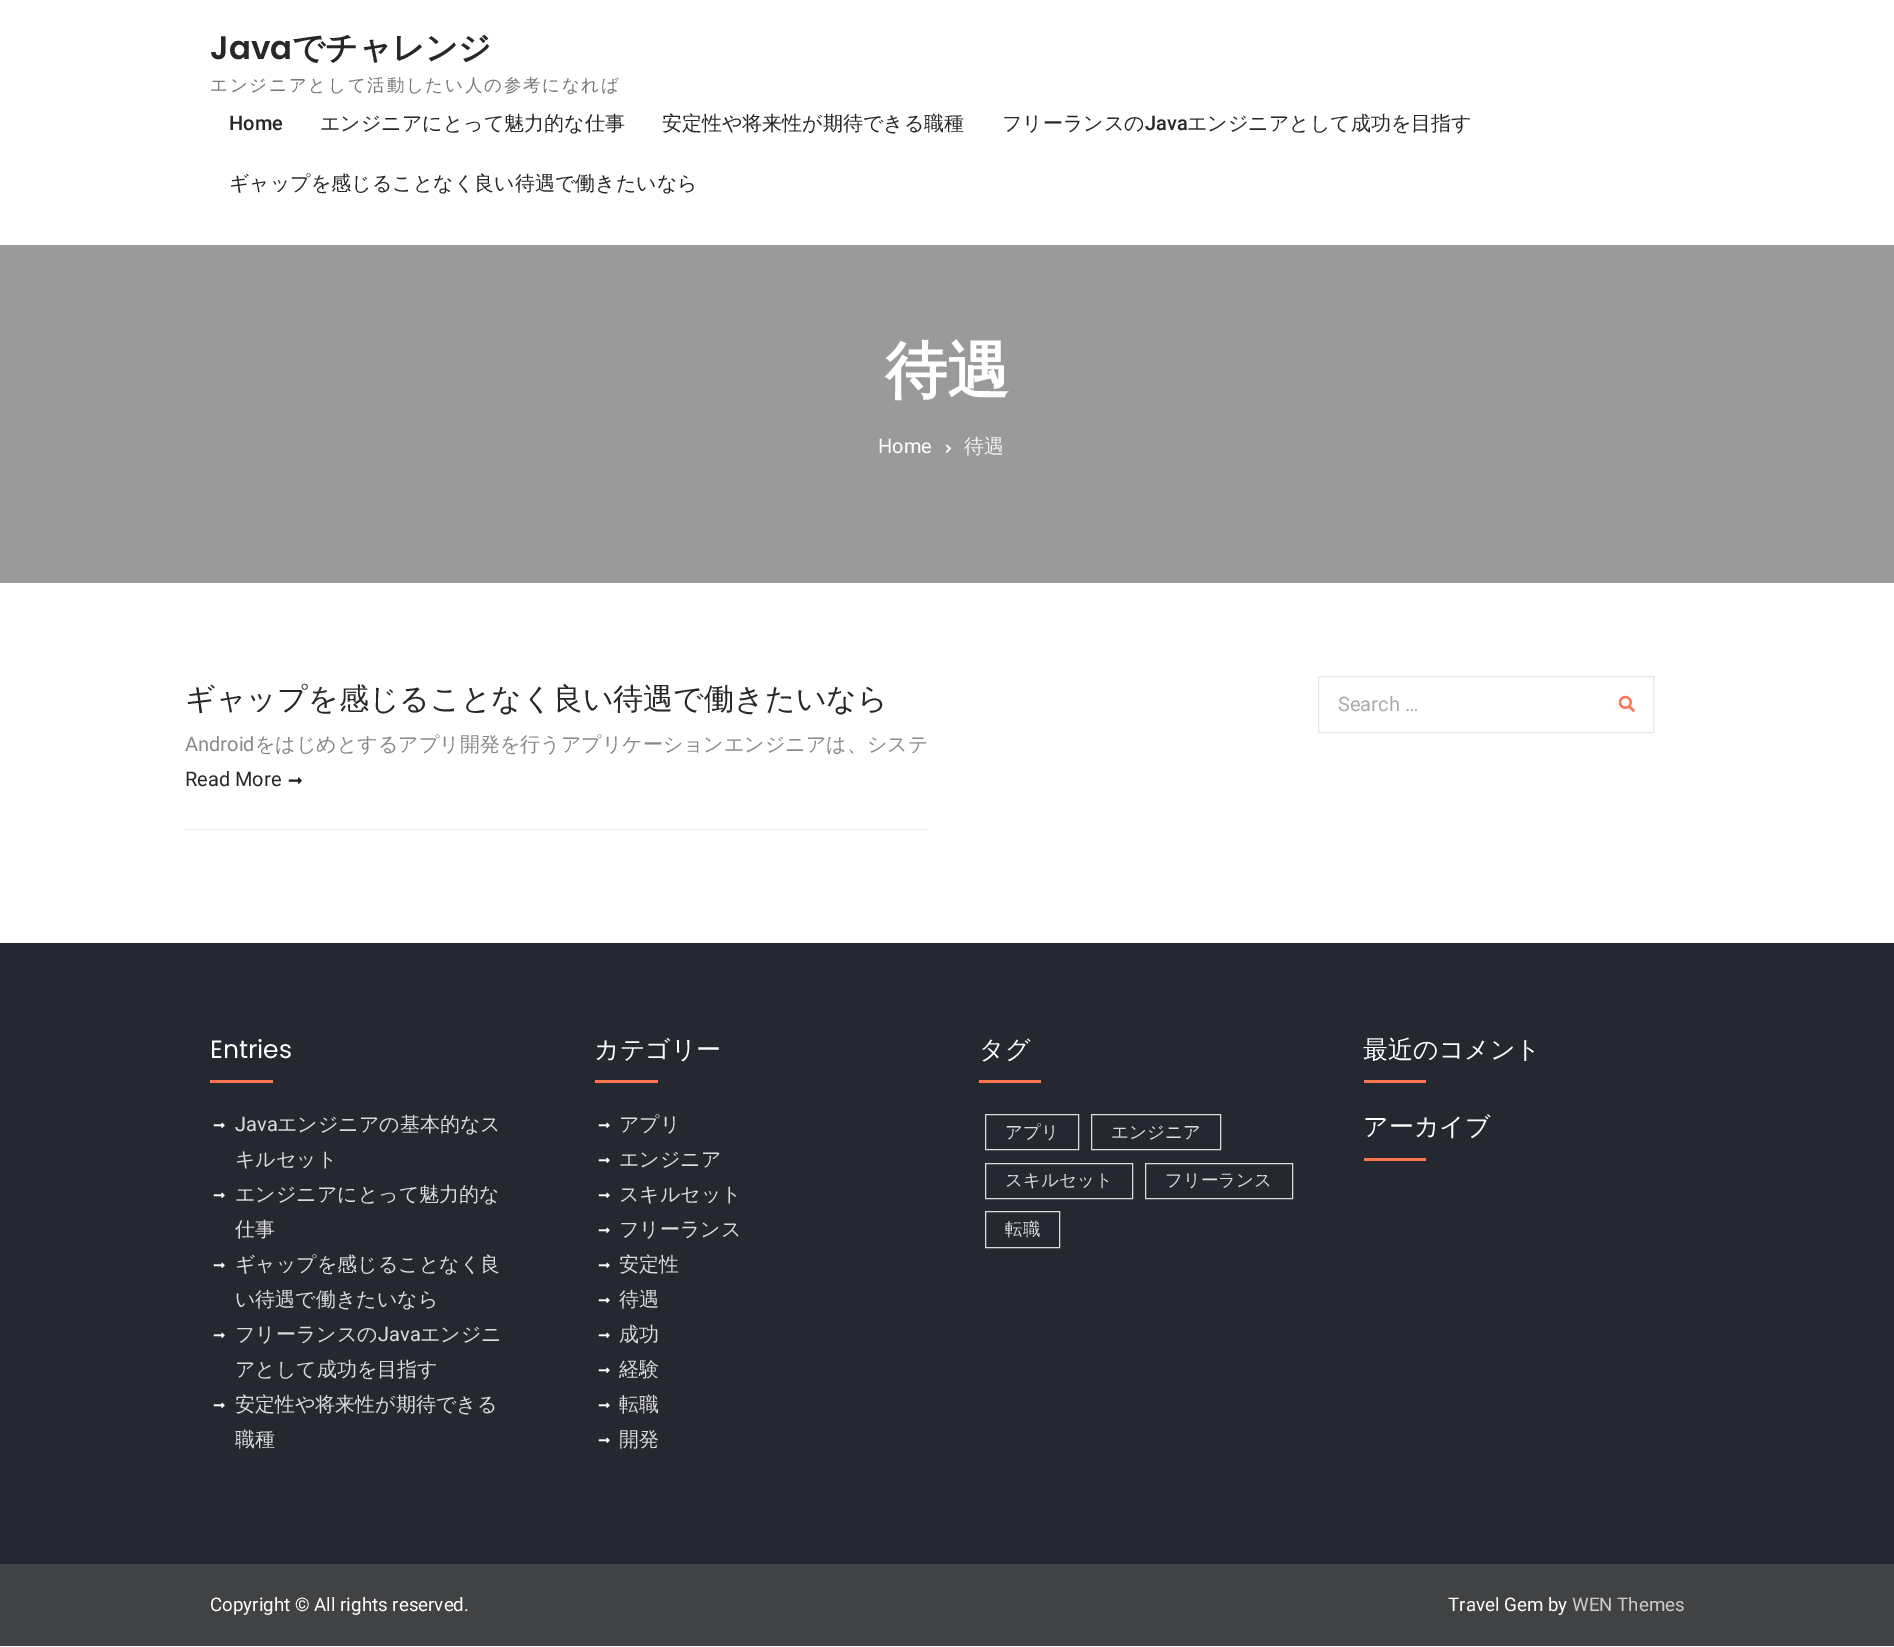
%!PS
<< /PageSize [1894 1647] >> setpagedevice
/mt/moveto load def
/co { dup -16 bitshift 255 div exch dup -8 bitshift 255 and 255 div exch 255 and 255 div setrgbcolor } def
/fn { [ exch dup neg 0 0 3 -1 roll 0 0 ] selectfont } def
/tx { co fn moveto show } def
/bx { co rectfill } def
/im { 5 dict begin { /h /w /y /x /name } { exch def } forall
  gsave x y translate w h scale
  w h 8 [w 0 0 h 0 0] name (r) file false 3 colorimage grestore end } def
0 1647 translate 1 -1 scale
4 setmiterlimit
0 0 1894 1647 16#FAFAFD bx
0 0 1894 245 16#FFFFFF bx
0 245 1894 338 16#9A9A9A bx
(media/1.raw) 945 444 7 9 im
0 583 1894 360 16#FFFFFF bx
185 829 743 1 16#EEEEEE bx
(media/2.raw) 288 777 14 7 im
16#E7E7E7 co
1318.5 676.5 335 56 rectstroke
(media/3.raw) 1619 695 16 17 im
0 943 1894 621 16#252831 bx
210 1080 63 3 16#FF7550 bx
(media/4.raw) 213 1122 12 6 im
(media/4.raw) 213 1192 12 6 im
(media/4.raw) 213 1262 12 6 im
(media/4.raw) 213 1332 12 6 im
(media/4.raw) 213 1402 12 6 im
595 1080 63 3 16#FF7550 bx
(media/4.raw) 598 1122 12 6 im
(media/4.raw) 598 1157 12 6 im
(media/4.raw) 598 1192 12 6 im
(media/4.raw) 598 1227 12 6 im
(media/4.raw) 598 1262 12 6 im
(media/4.raw) 598 1297 12 6 im
(media/4.raw) 598 1332 12 6 im
(media/4.raw) 598 1367 12 6 im
(media/4.raw) 598 1402 12 6 im
(media/4.raw) 598 1437 12 6 im
979 1080 62 3 16#FF7550 bx
16#DDDDDD co
985.5 1114.5 93 35 rectstroke
1091.5 1114.5 129 35 rectstroke
985.5 1163.5 147 35 rectstroke
1145.5 1163.5 147 35 rectstroke
985.5 1211.5 74 36 rectstroke
1364 1080 62 3 16#FF7550 bx
1364 1158 62 3 16#FF7550 bx
0 1564 1894 82 16#414244 bx
(Java) 210 59 /Poppins-SemiBold 32.5 16#272727 tx
(でチャレンジ) 292 59 /WenQuanYiZenHei-Bold 32.5 16#272727 tx
/WenQuanYiZenHei-Medium 17.5 fn
16#777777 co
210 91 mt 1.75 0 (エンジニアとして活動したい人の参考になれば) ashow
(Home) 229 130 /Roboto-Medium 20 16#272727 tx
(エンジニアにとって魅力的な仕事) 320 130 /WenQuanYiZenHei-Medium 20 16#272727 tx
(安定性や将来性が期待できる職種) 662 130 /WenQuanYiZenHei-Medium 20 16#272727 tx
(フリーランスの) 1002 130 /WenQuanYiZenHei-Medium 20 16#272727 tx
(Java) 1145 130 /Roboto-Medium 20 16#272727 tx
(エンジニアとして成功を目指す) 1187 130 /WenQuanYiZenHei-Medium 20 16#272727 tx
(ギャップを感じることなく良い待遇で働きたいなら) 229 190 /WenQuanYiZenHei-Medium 20 16#272727 tx
(待遇) 885 392 /WenQuanYiZenHei-Bold 62 16#FFFFFF tx
(Home) 878 453 /Roboto-Regular 20 16#FFFFFF tx
(待遇) 964 453 /WenQuanYiZenHei-Medium 20 16#F1F1F1 tx
(ギャップを感じることなく良い待遇で働きたいなら) 185 709 /WenQuanYiZenHei-Medium 30 16#272727 tx
(Android) 185 751 /Roboto-Regular 20 16#888888 tx
(をはじめとするアプリ開発を行うアプリケーションエンジニアは、システ) 255 751 /WenQuanYiZenHei-Medium 20 16#888888 tx
(Read More) 185 786 /Roboto-Regular 20 16#272727 tx
(Search …) 1338 711 /Roboto-Regular 20 16#AAAAAA tx
(Entries) 210 1058 /Poppins-Regular 25 16#FFFFFF tx
(Java) 235 1131 /Roboto-Regular 20 16#DDDDDD tx
(エンジニアの基本的なス) 277 1131 /WenQuanYiZenHei-Medium 20 16#DDDDDD tx
(キルセット) 235 1166 /WenQuanYiZenHei-Medium 20 16#DDDDDD tx
(エンジニアにとって魅力的な) 235 1201 /WenQuanYiZenHei-Medium 20 16#DDDDDD tx
(仕事) 235 1236 /WenQuanYiZenHei-Medium 20 16#DDDDDD tx
(ギャップを感じることなく良) 235 1271 /WenQuanYiZenHei-Medium 20 16#DDDDDD tx
(い待遇で働きたいなら) 235 1306 /WenQuanYiZenHei-Medium 20 16#DDDDDD tx
(フリーランスの) 235 1341 /WenQuanYiZenHei-Medium 20 16#DDDDDD tx
(Java) 378 1341 /Roboto-Regular 20 16#DDDDDD tx
(エンジニ) 420 1341 /WenQuanYiZenHei-Medium 20 16#DDDDDD tx
(アとして成功を目指す) 235 1376 /WenQuanYiZenHei-Medium 20 16#DDDDDD tx
(安定性や将来性が期待できる) 235 1411 /WenQuanYiZenHei-Medium 20 16#DDDDDD tx
(職種) 235 1446 /WenQuanYiZenHei-Medium 20 16#DDDDDD tx
(カテゴリー) 594 1058 /WenQuanYiZenHei-Medium 25 16#FFFFFF tx
(アプリ) 619 1131 /WenQuanYiZenHei-Medium 20 16#DDDDDD tx
(エンジニア) 619 1166 /WenQuanYiZenHei-Medium 20 16#DDDDDD tx
(スキルセット) 619 1201 /WenQuanYiZenHei-Medium 20 16#DDDDDD tx
(フリーランス) 619 1236 /WenQuanYiZenHei-Medium 20 16#DDDDDD tx
(安定性) 619 1271 /WenQuanYiZenHei-Medium 20 16#DDDDDD tx
(待遇) 619 1306 /WenQuanYiZenHei-Medium 20 16#DDDDDD tx
(成功) 619 1341 /WenQuanYiZenHei-Medium 20 16#DDDDDD tx
(経験) 619 1376 /WenQuanYiZenHei-Medium 20 16#DDDDDD tx
(転職) 619 1411 /WenQuanYiZenHei-Medium 20 16#DDDDDD tx
(開発) 619 1446 /WenQuanYiZenHei-Medium 20 16#DDDDDD tx
(タグ) 979 1058 /WenQuanYiZenHei-Medium 25 16#FFFFFF tx
(アプリ) 1005 1138 /WenQuanYiZenHei-Medium 17.5 16#DDDDDD tx
(エンジニア) 1111 1138 /WenQuanYiZenHei-Medium 17.5 16#DDDDDD tx
(スキルセット) 1005 1186 /WenQuanYiZenHei-Medium 17.5 16#DDDDDD tx
(フリーランス) 1165 1186 /WenQuanYiZenHei-Medium 17.5 16#DDDDDD tx
(転職) 1005 1235 /WenQuanYiZenHei-Medium 17.5 16#DDDDDD tx
(最近のコメント) 1363 1058 /WenQuanYiZenHei-Medium 25 16#FFFFFF tx
(アーカイブ) 1363 1135 /WenQuanYiZenHei-Medium 25 16#FFFFFF tx
(Copyright © All rights reserved.) 210 1611 /Roboto-Regular 18.75 16#FFFFFF tx
(Travel Gem by) 1448 1611 /Roboto-Regular 18.75 16#FFFFFF tx
(WEN Themes) 1572 1611 /Roboto-Regular 18.75 16#CCCCCC tx
showpage
